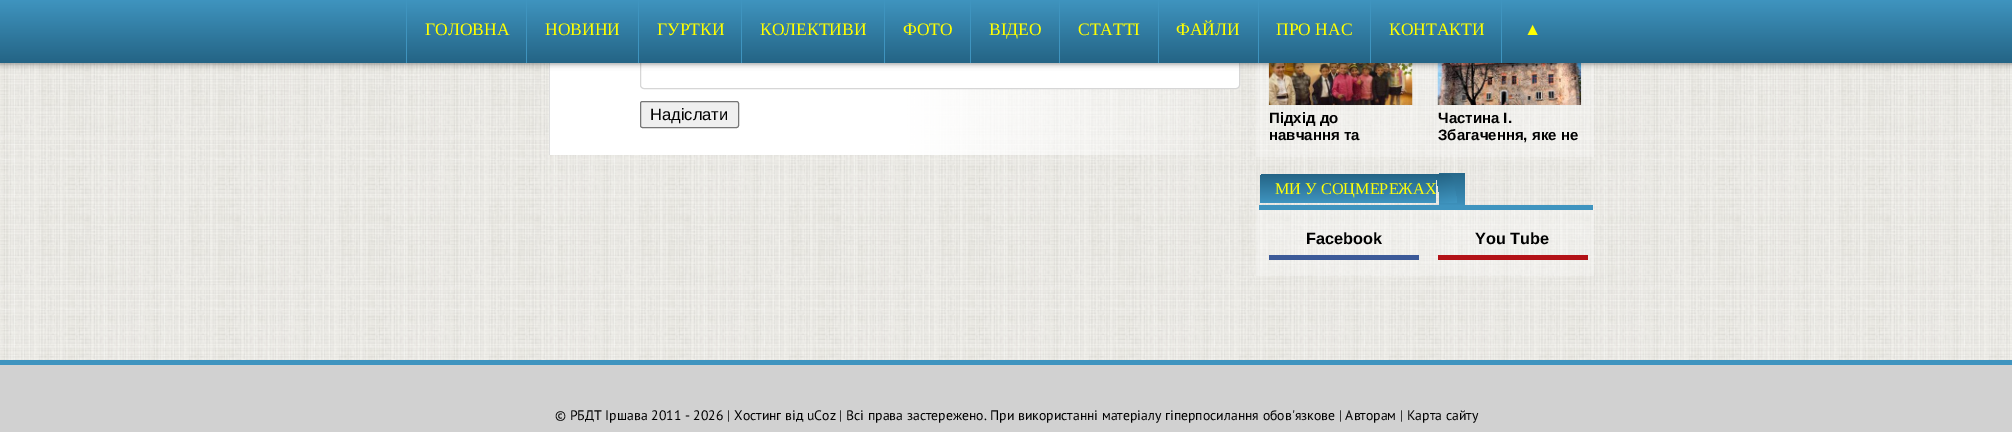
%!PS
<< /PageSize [2012 432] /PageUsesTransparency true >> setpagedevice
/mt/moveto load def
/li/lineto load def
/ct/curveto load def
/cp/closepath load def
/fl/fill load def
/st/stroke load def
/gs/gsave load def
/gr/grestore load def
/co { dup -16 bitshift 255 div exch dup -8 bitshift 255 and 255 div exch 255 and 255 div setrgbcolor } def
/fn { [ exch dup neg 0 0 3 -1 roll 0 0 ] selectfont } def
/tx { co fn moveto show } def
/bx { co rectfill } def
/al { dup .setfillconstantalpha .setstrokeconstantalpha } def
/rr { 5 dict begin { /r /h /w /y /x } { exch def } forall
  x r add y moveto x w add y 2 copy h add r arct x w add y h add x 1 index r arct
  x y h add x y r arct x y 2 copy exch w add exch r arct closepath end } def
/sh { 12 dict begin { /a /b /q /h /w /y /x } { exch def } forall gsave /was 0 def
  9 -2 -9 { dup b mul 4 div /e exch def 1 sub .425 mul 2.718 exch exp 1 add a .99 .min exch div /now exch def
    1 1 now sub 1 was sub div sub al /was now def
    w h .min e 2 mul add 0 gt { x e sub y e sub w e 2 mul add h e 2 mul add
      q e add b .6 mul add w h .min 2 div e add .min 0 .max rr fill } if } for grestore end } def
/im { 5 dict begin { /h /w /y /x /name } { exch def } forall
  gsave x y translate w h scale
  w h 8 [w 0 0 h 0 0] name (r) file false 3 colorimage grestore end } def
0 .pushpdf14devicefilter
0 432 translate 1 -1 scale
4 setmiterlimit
0 0 2012 432 16#FFFFFF bx
(media/1.raw) 0 63 2012 297 im
549 63 1 92 16#DEDEDE bx
16#FFFFFF co
640.5 26.5 599 62 3.5 rr gs fl gr
16#D6D6D6 co
st
0.3 al
1256 63 338 94 16#FFFFFF bx
1 al
(media/2.raw) 1268 63 145 42 im
(media/3.raw) 1437 63 145 42 im
16#222222 co
0 1 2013 63 0 3 .5 sh
gs 0 0 mt 2012 0 li 2012 63 li 0 63 li cp clip newpath
<< /ShadingType 2 /ColorSpace /DeviceRGB /Coords [1006 0 1006 63] /Extend [true true] /Function << /FunctionType 2 /Domain [0 1] /C0 [.247 .58 .749] /C1 [.141 .392 .522] /N 1 >> >> shfill gr
406 0 1 63 16#3F94BF bx
526 0 1 63 16#3F94BF bx
638 0 1 63 16#3F94BF bx
741 0 1 63 16#3F94BF bx
884 0 1 63 16#3F94BF bx
970 0 1 63 16#3F94BF bx
1059 0 1 63 16#3F94BF bx
1158 0 1 63 16#3F94BF bx
1258 0 1 63 16#3F94BF bx
1370 0 1 63 16#3F94BF bx
1501 0 1 63 16#3F94BF bx
16#EFEFEF co
640.5 101.5 98 26 2 rr gs fl gr
16#767676 co
st
gs 1265 174 mt 1436 174 li 1436 203 li 1260 203 li 1260 179 li 1260 176 1262 174 1265 174 ct cp clip newpath
<< /ShadingType 2 /ColorSpace /DeviceRGB /Coords [1348 174 1348 203] /Extend [true true] /Function << /FunctionType 2 /Domain [0 1] /C0 [.141 .392 .522] /C1 [.247 .58 .749] /N 1 >> >> shfill gr
gs 1439 173 mt 1465 173 li 1465 205 li 1439 205 li cp clip newpath
<< /ShadingType 2 /ColorSpace /DeviceRGB /Coords [1452 169 1452 208] /Extend [true true] /Function << /FunctionType 2 /Domain [0 1] /C0 [.141 .392 .522] /C1 [.247 .58 .749] /N 1 >> >> shfill gr
0.3 al
1256 205 338 71 16#FFFFFF bx
1 al
1259 205 334 5 16#3F94BF bx
1269 255 150 5 16#3C5A98 bx
1438 255 150 5 16#B31217 bx
0 365 2012 67 16#D1D1D1 bx
0 360 2012 5 16#3F94BF bx
(ГОЛОВНА) 425 35 /LiberationSerif-Regular 17.5 16#FFFF00 tx
(НОВИНИ) 545 35 /LiberationSerif-Regular 17.5 16#FFFF00 tx
(ГУРТКИ) 657 35 /LiberationSerif-Regular 17.5 16#FFFF00 tx
(КОЛЕКТИВИ) 760 35 /LiberationSerif-Regular 17.5 16#FFFF00 tx
(ФОТО) 903 35 /LiberationSerif-Regular 17.5 16#FFFF00 tx
(ВІДЕО) 989 35 /LiberationSerif-Regular 17.5 16#FFFF00 tx
(СТАТТІ) 1078 35 /LiberationSerif-Regular 17.5 16#FFFF00 tx
(ФАЙЛИ) 1176 35 /LiberationSerif-Regular 17.5 16#FFFF00 tx
(ПРО НАС) 1276 35 /LiberationSerif-Regular 17.5 16#FFFF00 tx
(КОНТАКТИ) 1389 35 /LiberationSerif-Regular 17.5 16#FFFF00 tx
(▲) 1524 35 /LiberationSerif-Regular 17.5 16#FFFF00 tx
(Надіслати) 650 120 /LiberationSans-Regular 16.5 16#000000 tx
(Підхід до) 1269 123 /LiberationSans-Bold 15 16#000000 tx
(навчання та) 1269 140 /LiberationSans-Bold 15 16#000000 tx
(Частина І.) 1438 123 /LiberationSans-Bold 15 16#000000 tx
(Збагачення, яке не) 1438 140 /LiberationSans-Bold 15 16#000000 tx
(МИ У СОЦМЕРЕЖАХ) 1275 194 /LiberationSerif-Regular 16.25 16#FEFE0A tx
gs 1436 174 mt 1446 174 li 1449.5 174 1452.5 176.5 1453 180 ct 1457 202.5 li 1441 202.5 li cp clip newpath
<< /ShadingType 2 /ColorSpace /DeviceRGB /Coords [1444 174 1449 203] /Extend [true true] /Function << /FunctionType 2 /Domain [0 1] /C0 [.141 .392 .522] /C1 [.247 .58 .749] /N 1 >> >> shfill gr
(Facebook) 1306 244 /LiberationSans-Bold 16.25 16#000000 tx
(You Tube) 1475 244 /LiberationSans-Bold 16.25 16#000000 tx
(© РБДТ Іршава 2011 - 2026 | Хостинг від uCoz | Всі права застережено. При використанні матеріалу гіперпосилання обов'язкове | Авторам | Карта сайту) 555 420 /PTSans-Regular 13.75 16#000000 tx
.poppdf14devicefilter showpage
